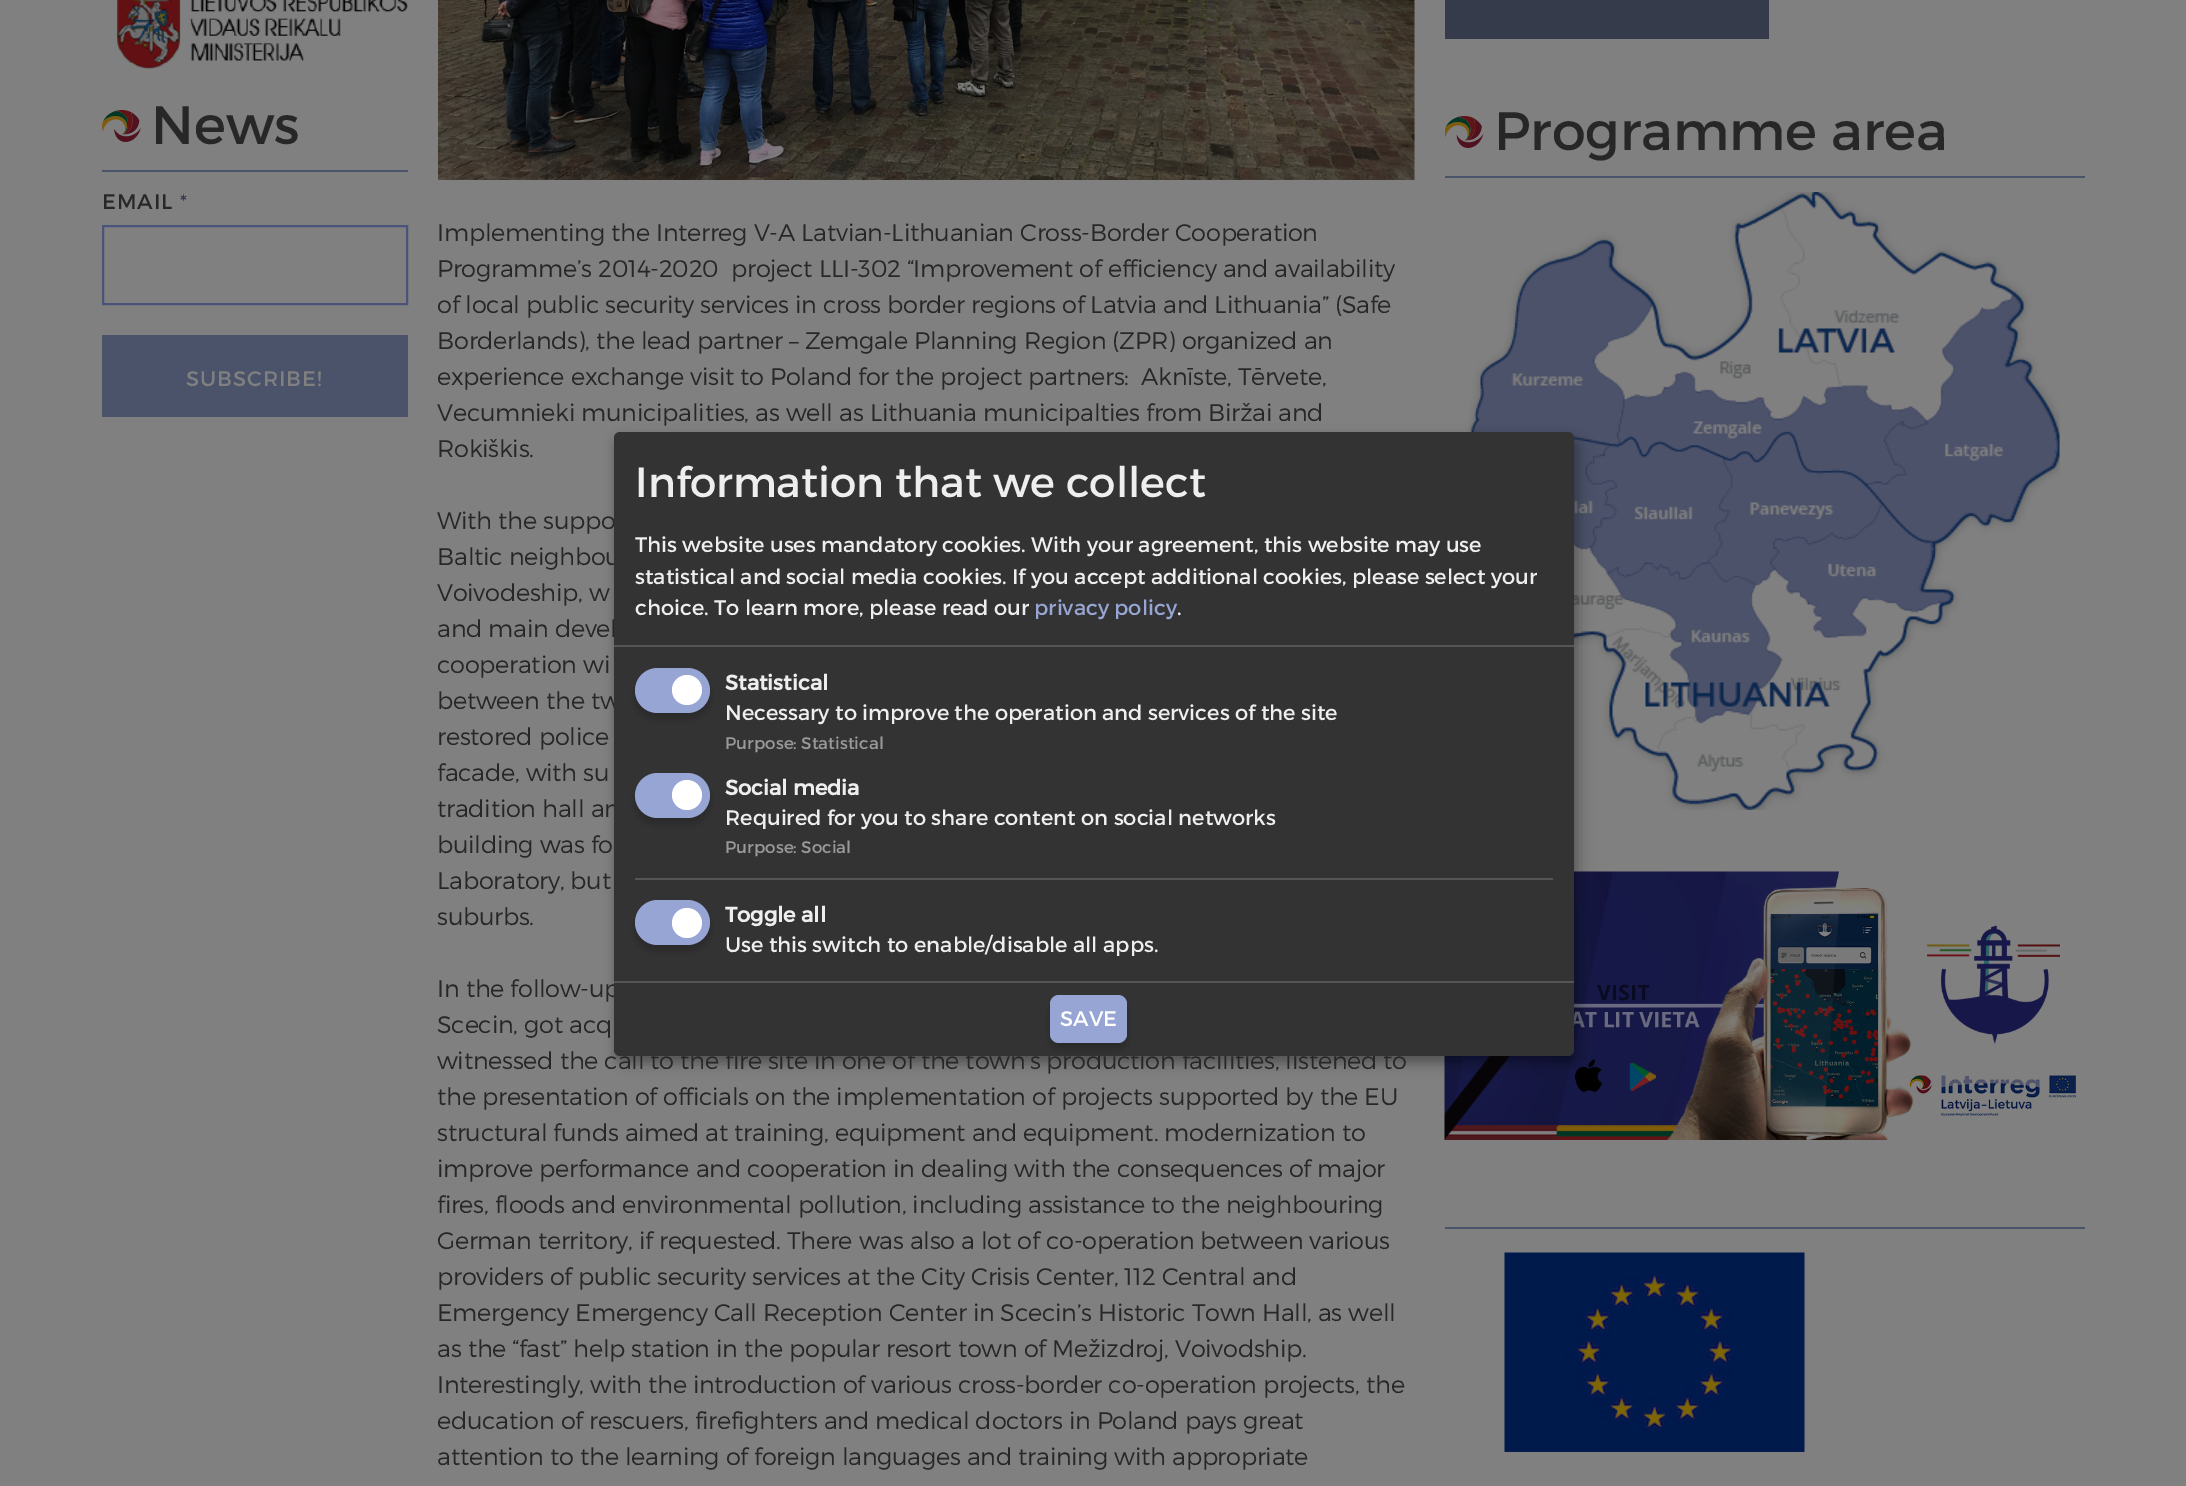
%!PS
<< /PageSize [2186 1486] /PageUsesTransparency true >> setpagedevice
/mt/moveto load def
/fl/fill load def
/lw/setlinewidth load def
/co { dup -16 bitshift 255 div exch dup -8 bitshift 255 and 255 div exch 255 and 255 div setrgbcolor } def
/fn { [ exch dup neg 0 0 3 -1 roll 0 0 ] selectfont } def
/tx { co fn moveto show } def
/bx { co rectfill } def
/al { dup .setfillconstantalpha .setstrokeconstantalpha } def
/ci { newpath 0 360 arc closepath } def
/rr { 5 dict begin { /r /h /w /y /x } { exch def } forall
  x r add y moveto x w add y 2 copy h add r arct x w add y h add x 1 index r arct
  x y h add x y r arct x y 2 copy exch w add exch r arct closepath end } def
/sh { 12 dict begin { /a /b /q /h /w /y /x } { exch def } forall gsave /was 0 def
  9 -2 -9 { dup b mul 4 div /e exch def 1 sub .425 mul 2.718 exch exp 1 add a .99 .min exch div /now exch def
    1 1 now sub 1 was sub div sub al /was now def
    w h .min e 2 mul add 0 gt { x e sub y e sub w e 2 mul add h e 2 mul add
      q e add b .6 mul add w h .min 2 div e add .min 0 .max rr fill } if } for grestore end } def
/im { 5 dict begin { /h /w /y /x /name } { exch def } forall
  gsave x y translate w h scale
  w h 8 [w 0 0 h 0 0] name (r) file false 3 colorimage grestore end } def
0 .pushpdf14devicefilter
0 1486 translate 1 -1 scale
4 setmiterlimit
0 0 2186 1486 16#808080 bx
(media/1.raw) 117 0 291 69 im
(media/2.raw) 102 110 39 32 im
102 170 306 2 16#4B536A bx
16#4B537A co
2 lw
103 226 304 78 rectstroke
102 335 306 82 16#4B536A bx
1445 0 324 39 16#363B4C bx
(media/3.raw) 1445 116 39 32 im
1445 176 640 2 16#4B536A bx
(media/4.raw) 1468 192 592 618 im
(media/5.raw) 1444 871 633 269 im
1445 1227 640 2 16#4B536A bx
(media/6.raw) 1504 1252 301 200 im
(media/7.raw) 438 0 977 180 im
16#000000 co
621 440 960 624 6 7.5 .19 sh
614 438 960 624 6 4.5 .2 sh
(News) 151 144 /Montserrat-Regular 54 16#272727 tx
/Montserrat-Regular 21 fn
102 209 mt 1 0 (EMAIL) ashow
/Montserrat-Regular 20 fn
16#363B4C co
180 209 mt 1 0 (*) ashow
/Montserrat-Regular 21 fn
16#808080 co
186 386 mt 1 0 (SUBSCRIBE!) ashow
(Programme area) 1494 150 /Montserrat-Regular 54 16#272727 tx
/Montserrat-Light 24 fn
437 241 mt -.25 0 (Implementing the Interreg V-A Latvian-Lithuanian Cross-Border Cooperation) ashow
437 277 mt -.25 0 (Programme’s 2014-2020  project LLI-302 “Improvement of efficiency and availability) ashow
437 313 mt -.25 0 (of local public security services in cross border regions of Latvia and Lithuania” \(Safe) ashow
437 349 mt -.25 0 (Borderlands\), the lead partner – Zemgale Planning Region \(ZPR\) organized an) ashow
437 385 mt -.25 0 (experience exchange visit to Poland for the project partners:  Aknīste, Tērvete,) ashow
437 421 mt -.25 0 (Vecumnieki municipalities, as well as Lithuania municipalties from Biržai and) ashow
437 457 mt -.25 0 (Rokiškis.) ashow
437 529 mt -.25 0 (With the suppo) ashow
437 565 mt -.25 0 (Baltic neighbou) ashow
437 601 mt -.25 0 (Voivodeship, w) ashow
437 637 mt -.25 0 (and main devel) ashow
437 673 mt -.25 0 (cooperation wi) ashow
437 709 mt -.25 0 (between the tw) ashow
437 745 mt -.25 0 (restored police) ashow
437 781 mt -.25 0 (facade, with su) ashow
437 817 mt -.25 0 (tradition hall an) ashow
437 853 mt -.25 0 (building was fo) ashow
437 889 mt -.25 0 (Laboratory, but) ashow
437 925 mt -.25 0 (suburbs.) ashow
437 997 mt -.25 0 (In the follow-up) ashow
437 1033 mt -.25 0 (Scecin, got acq) ashow
437 1069 mt -.25 0 (witnessed the call to the fire site in one of the town’s production facilities, listened to) ashow
437 1105 mt -.25 0 (the presentation of officials on the implementation of projects supported by the EU) ashow
437 1141 mt -.25 0 (structural funds aimed at training, equipment and equipment. modernization to) ashow
437 1177 mt -.25 0 (improve performance and cooperation in dealing with the consequences of major) ashow
437 1213 mt -.25 0 (fires, floods and environmental pollution, including assistance to the neighbouring) ashow
437 1249 mt -.25 0 (German territory, if requested. There was also a lot of co-operation between various) ashow
437 1285 mt -.25 0 (providers of public security services at the City Crisis Center, 112 Central and) ashow
437 1321 mt -.25 0 (Emergency Emergency Call Reception Center in Scecin’s Historic Town Hall, as well) ashow
437 1357 mt -.25 0 (as the “fast” help station in the popular resort town of Mežizdroj, Voivodship.) ashow
437 1393 mt -.25 0 (Interestingly, with the introduction of various cross-border co-operation projects, the) ashow
437 1429 mt -.25 0 (education of rescuers, firefighters and medical doctors in Poland pays great) ashow
437 1465 mt -.25 0 (attention to the learning of foreign languages and training with appropriate) ashow
16#333333 co
614 432 960 624 6 rr fl
614 645 960 2 16#555555 bx
(Information that we collect) 635 497 /Montserrat-Regular 42 16#EEEEEE tx
(This website uses mandatory cookies. With your agreement, this website may use) 635 552 /Montserrat-Regular 21 16#EEEEEE tx
(statistical and social media cookies. If you accept additional cookies, please select your) 635 584 /Montserrat-Regular 21 16#EEEEEE tx
(choice. To learn more, please read our) 635 615 /Montserrat-Regular 21 16#EEEEEE tx
(privacy policy) 1034 615 /Montserrat-Regular 21 16#96A5D4 tx
(.) 1177 615 /Montserrat-Regular 21 16#EEEEEE tx
16#000000 co
635 674 75 45 22.5 4.5 .2 sh
16#96A5D4 co
635 668 75 45 22.5 rr fl
16#FFFFFF co
687 690 15 ci fl
(Statistical) 725 690 /Montserrat-Bold 21 16#EEEEEE tx
(Necessary to improve the operation and services of the site) 725 720 /Montserrat-Regular 21 16#EEEEEE tx
(Purpose: Statistical) 725 749 /Montserrat-Regular 16.75 16#999999 tx
16#000000 co
635 779 75 45 22.5 4.5 .2 sh
16#96A5D4 co
635 773 75 45 22.5 rr fl
16#FFFFFF co
687 795 15 ci fl
(Social media) 725 795 /Montserrat-Bold 21 16#EEEEEE tx
(Required for you to share content on social networks) 725 825 /Montserrat-Regular 21 16#EEEEEE tx
(Purpose: Social) 725 853 /Montserrat-Regular 16.75 16#999999 tx
635 878 918 2 16#555555 bx
16#000000 co
635 906 75 45 22.5 4.5 .2 sh
16#96A5D4 co
635 900 75 45 22.5 rr fl
16#FFFFFF co
687 923 15 ci fl
(Toggle all) 725 922 /Montserrat-Bold 21 16#EEEEEE tx
(Use this switch to enable/disable all apps.) 725 952 /Montserrat-Regular 21 16#EEEEEE tx
614 981 960 2 16#555555 bx
16#000000 co
1050 1001 77 48 9 4.5 .2 sh
16#96A5D4 co
1050 995 77 48 9 rr fl
(SAVE) 1060 1026 /Montserrat-Regular 21 16#FFFFFF tx
.poppdf14devicefilter showpage
